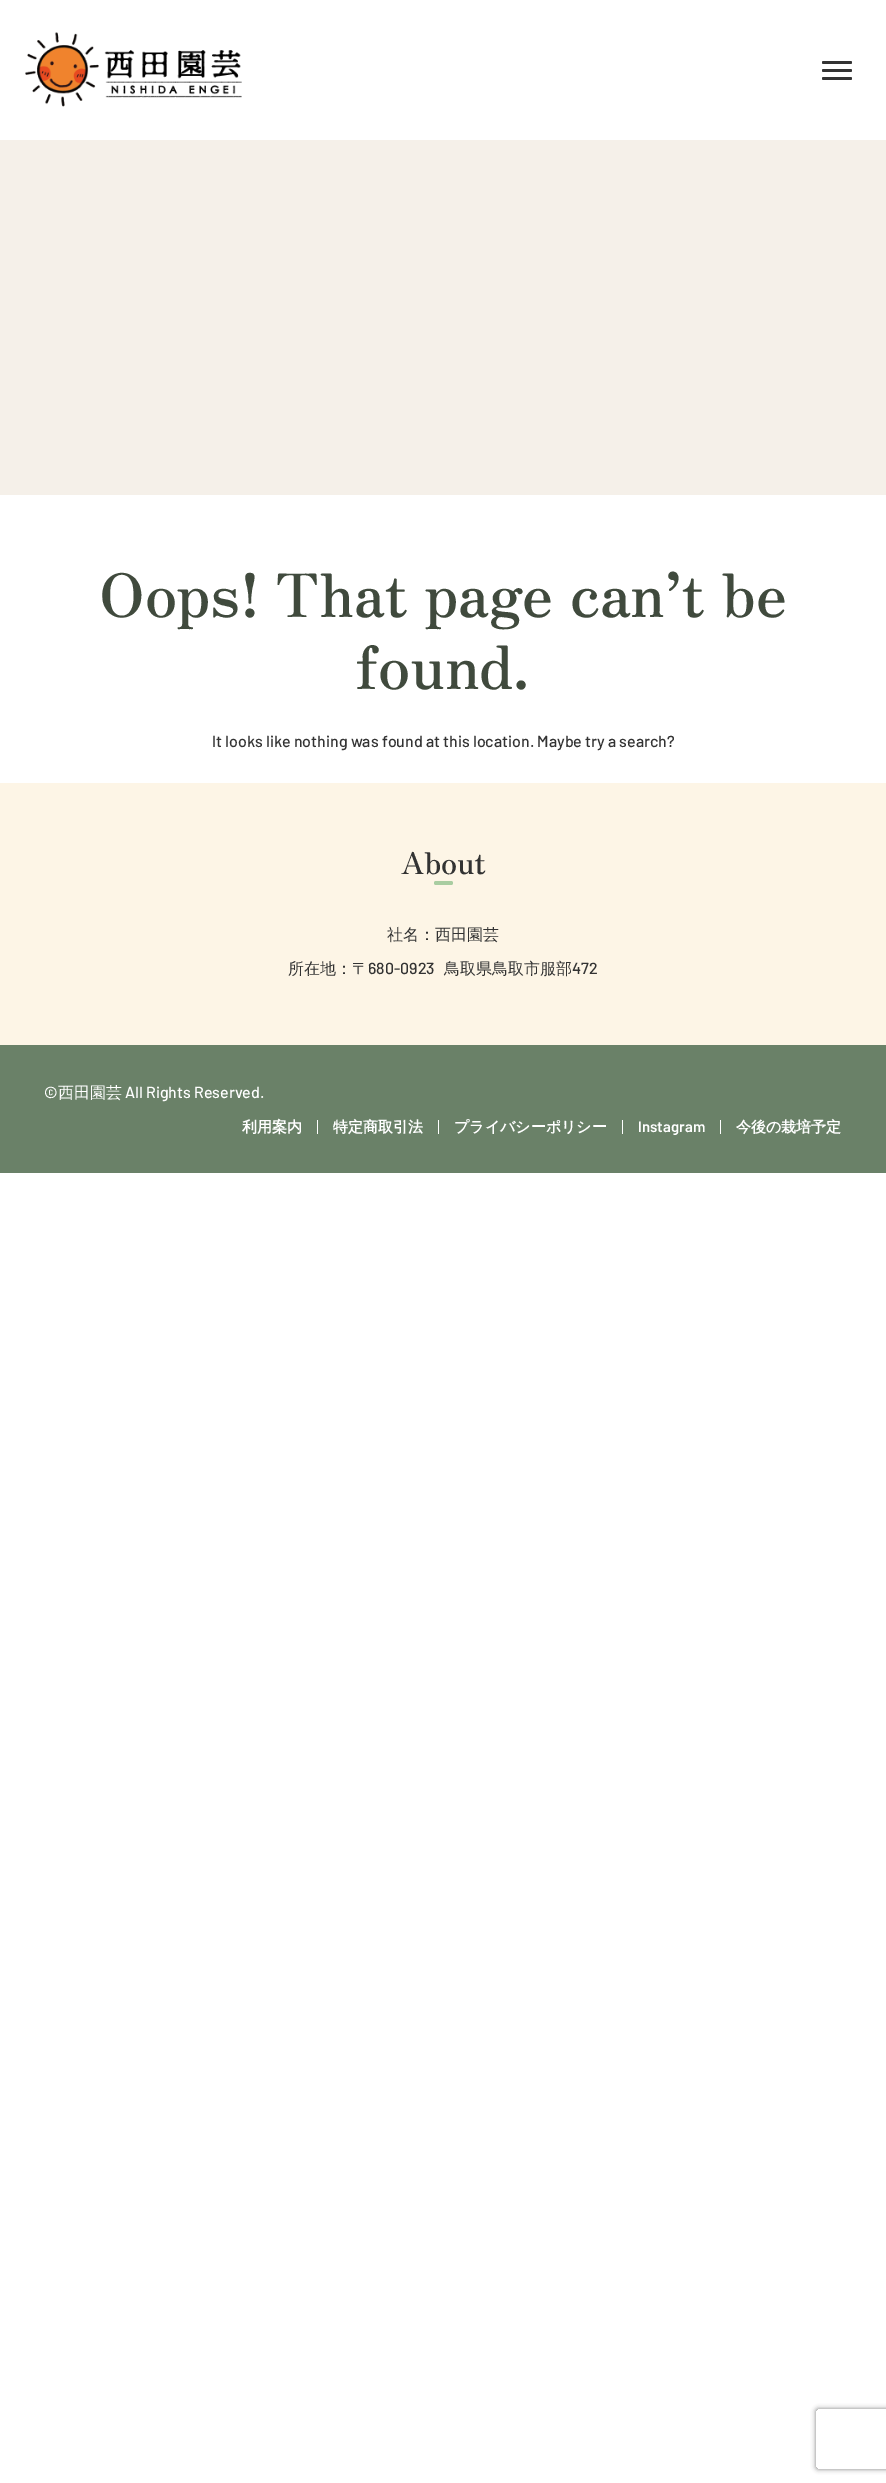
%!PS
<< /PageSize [886 2483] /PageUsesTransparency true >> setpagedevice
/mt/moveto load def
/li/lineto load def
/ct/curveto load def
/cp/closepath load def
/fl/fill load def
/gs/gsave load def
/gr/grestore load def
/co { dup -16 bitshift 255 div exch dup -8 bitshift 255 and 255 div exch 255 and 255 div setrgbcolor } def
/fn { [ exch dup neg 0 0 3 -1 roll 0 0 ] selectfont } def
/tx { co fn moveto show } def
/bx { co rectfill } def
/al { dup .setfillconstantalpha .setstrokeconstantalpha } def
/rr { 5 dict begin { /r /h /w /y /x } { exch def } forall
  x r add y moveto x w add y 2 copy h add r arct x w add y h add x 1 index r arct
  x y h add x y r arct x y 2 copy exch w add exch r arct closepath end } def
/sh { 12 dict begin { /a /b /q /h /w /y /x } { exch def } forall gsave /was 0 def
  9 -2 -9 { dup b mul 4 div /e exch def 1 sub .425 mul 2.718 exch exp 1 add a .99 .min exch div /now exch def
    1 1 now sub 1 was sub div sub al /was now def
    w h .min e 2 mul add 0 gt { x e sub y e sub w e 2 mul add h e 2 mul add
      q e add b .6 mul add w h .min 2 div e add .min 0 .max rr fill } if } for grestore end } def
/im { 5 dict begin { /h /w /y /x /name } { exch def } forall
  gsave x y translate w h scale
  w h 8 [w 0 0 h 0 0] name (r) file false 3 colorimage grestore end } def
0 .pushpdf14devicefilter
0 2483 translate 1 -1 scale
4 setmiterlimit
0 0 886 2483 16#FFFFFF bx
(media/1.raw) 25 32 217 75 im
16#333333 co
822 61 30 3 1.5 rr fl
822 69 30 3 1.5 rr fl
822 77 30 3 1.5 rr fl
0 140 886 355 16#F5F0E9 bx
0 783 886 262 16#FDF5E6 bx
16#A9CDA1 co
434 881 19 4 2 rr fl
0 1045 886 128 16#6A8168 bx
317 1120 1 14 16#FFFFFF bx
438 1120 1 14 16#FFFFFF bx
622 1120 1 14 16#FFFFFF bx
720 1120 1 14 16#FFFFFF bx
gs
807 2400 mt 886 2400 li 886 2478 li 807 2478 li cp 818 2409 mt 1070 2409 li 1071 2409 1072 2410 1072 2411 ct 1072 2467 li 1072 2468 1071 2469 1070 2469 ct 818 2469 li 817 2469 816 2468 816 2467 ct 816 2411 li 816 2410 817 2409 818 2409 ct cp eoclip newpath
16#808080 co
816 2409 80 60 2 2.5 1 sh
gr
/ZenOldMincho-Bold 60 fn
16#404A3D co
99 617 mt -.2 0 (Oops! That page can’t be) ashow
355 689 mt -.2 0 (found.) ashow
(It looks like nothing was found at this location. Maybe try a search?) 212 747 /Barlow-Medium 16 16#333333 tx
/ZenOldMincho-Bold 30 fn
401 874 mt -.2 0 (About) ashow
(社名：西田園芸) 387 940 /WenQuanYiZenHei-Medium 16 16#333333 tx
(所在地：〒) 288 974 /WenQuanYiZenHei-Medium 16 16#333333 tx
(680-0923) 368 974 /Barlow-Medium 16 16#333333 tx
(鳥取県鳥取市服部) 444 974 /WenQuanYiZenHei-Medium 16 16#333333 tx
(472) 572 974 /Barlow-Medium 16 16#333333 tx
(©) 44 1098 /Barlow-Medium 16 16#FFFFFF tx
(西田園芸) 58 1098 /WenQuanYiZenHei-Medium 16 16#FFFFFF tx
(All Rights Reserved.) 125 1098 /Barlow-Medium 16 16#FFFFFF tx
(利用案内) 242 1132 /WenQuanYiZenHei-Bold 15 16#FFFFFF tx
(特定商取引法) 333 1132 /WenQuanYiZenHei-Bold 15 16#FFFFFF tx
(プライバシーポリシー) 454 1132 /WenQuanYiZenHei-Bold 15 16#FFFFFF tx
(Instagram) 638 1132 /Barlow-SemiBold 15 16#FFFFFF tx
(今後の栽培予定) 736 1132 /WenQuanYiZenHei-Bold 15 16#FFFFFF tx
.poppdf14devicefilter showpage
